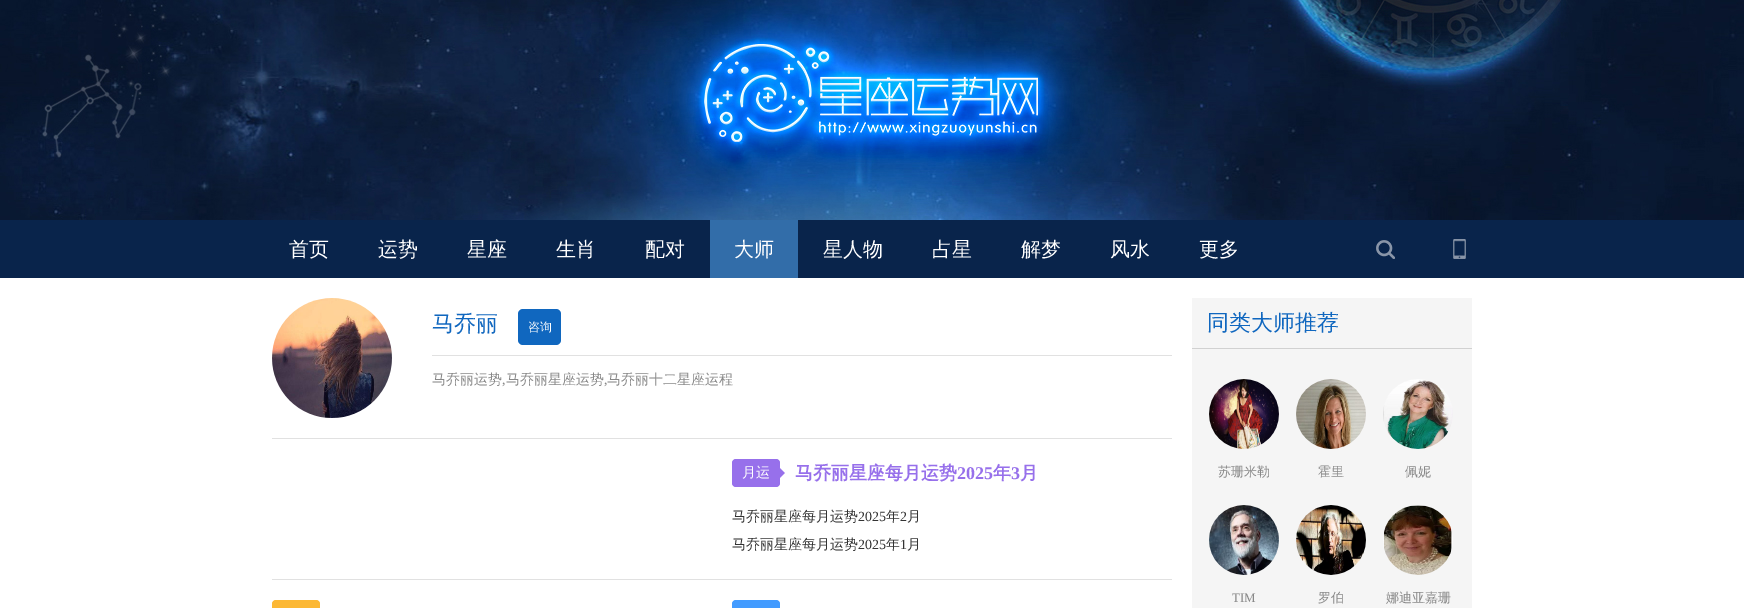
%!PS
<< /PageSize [1744 608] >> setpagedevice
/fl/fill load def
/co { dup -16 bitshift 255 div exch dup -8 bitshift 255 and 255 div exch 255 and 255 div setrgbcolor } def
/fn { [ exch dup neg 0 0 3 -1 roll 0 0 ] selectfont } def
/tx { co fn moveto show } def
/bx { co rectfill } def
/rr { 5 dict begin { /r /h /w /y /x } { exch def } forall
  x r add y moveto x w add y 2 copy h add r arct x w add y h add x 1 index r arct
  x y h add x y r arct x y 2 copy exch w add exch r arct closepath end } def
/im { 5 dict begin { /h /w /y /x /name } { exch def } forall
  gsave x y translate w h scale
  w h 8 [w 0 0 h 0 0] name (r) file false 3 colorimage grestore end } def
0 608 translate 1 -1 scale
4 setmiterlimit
0 0 1744 608 16#FFFFFF bx
(media/1.raw) 0 0 1744 220 im
0 220 1744 58 16#09244B bx
710 220 88 58 16#326DA9 bx
(media/2.raw) 1376 240 19 19 im
(media/3.raw) 1453 239 13 20 im
(media/4.raw) 272 298 120 120 im
432 355 740 1 16#E1E1E1 bx
16#1067BF co
518 309 43 36 5 rr fl
272 438 900 1 16#E1E1E1 bx
16#9770EB co
732 459 48 28 4 rr fl
(media/5.raw) 780 468 5 10 im
272 579 900 1 16#E1E1E1 bx
16#FCB835 co
272 600 48 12 4 rr fl
16#429BFF co
732 600 48 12 4 rr fl
1192 298 280 310 16#F5F5F5 bx
1192 348 280 1 16#D1D1D1 bx
(media/6.raw) 1209 379 70 70 im
(media/7.raw) 1296 379 70 70 im
(media/8.raw) 1383 379 70 70 im
(media/9.raw) 1209 505 70 70 im
(media/10.raw) 1296 505 70 70 im
(media/11.raw) 1383 505 70 70 im
(首页) 289 256 /WenQuanYiZenHei-Medium 20 16#FFFFFF tx
(运势) 378 256 /WenQuanYiZenHei-Medium 20 16#FFFFFF tx
(星座) 467 256 /WenQuanYiZenHei-Medium 20 16#FFFFFF tx
(生肖) 556 256 /WenQuanYiZenHei-Medium 20 16#FFFFFF tx
(配对) 645 256 /WenQuanYiZenHei-Medium 20 16#FFFFFF tx
(大师) 734 256 /WenQuanYiZenHei-Medium 20 16#FFFFFF tx
(星人物) 823 256 /WenQuanYiZenHei-Medium 20 16#FFFFFF tx
(占星) 932 256 /WenQuanYiZenHei-Medium 20 16#FFFFFF tx
(解梦) 1021 256 /WenQuanYiZenHei-Medium 20 16#FFFFFF tx
(风水) 1110 256 /WenQuanYiZenHei-Medium 20 16#FFFFFF tx
(更多) 1199 256 /WenQuanYiZenHei-Medium 20 16#FFFFFF tx
(马乔丽) 432 331 /WenQuanYiZenHei-Medium 22 16#1067BF tx
(咨询) 528 331 /WenQuanYiZenHei-Medium 12 16#FFFFFF tx
(马乔丽运势) 432 384 /WenQuanYiZenHei-Medium 14 16#888888 tx
(,) 502 384 /LiberationSerif-Regular 14 16#888888 tx
(马乔丽星座运势) 506 384 /WenQuanYiZenHei-Medium 14 16#888888 tx
(,) 604 384 /LiberationSerif-Regular 14 16#888888 tx
(马乔丽十二星座运程) 607 384 /WenQuanYiZenHei-Medium 14 16#888888 tx
(月运) 742 477 /WenQuanYiZenHei-Medium 14 16#FFFFFF tx
(马乔丽星座每月运势) 795 479 /WenQuanYiZenHei-Bold 18 16#9770EB tx
(2025) 957 479 /LiberationSerif-Bold 18 16#9770EB tx
(年) 993 479 /WenQuanYiZenHei-Bold 18 16#9770EB tx
(3) 1011 479 /LiberationSerif-Bold 18 16#9770EB tx
(月) 1020 479 /WenQuanYiZenHei-Bold 18 16#9770EB tx
(马乔丽星座每月运势) 732 521 /WenQuanYiZenHei-Medium 14 16#333333 tx
(2025) 858 521 /LiberationSerif-Regular 14 16#333333 tx
(年) 886 521 /WenQuanYiZenHei-Medium 14 16#333333 tx
(2) 900 521 /LiberationSerif-Regular 14 16#333333 tx
(月) 907 521 /WenQuanYiZenHei-Medium 14 16#333333 tx
(马乔丽星座每月运势) 732 549 /WenQuanYiZenHei-Medium 14 16#333333 tx
(2025) 858 549 /LiberationSerif-Regular 14 16#333333 tx
(年) 886 549 /WenQuanYiZenHei-Medium 14 16#333333 tx
(1) 900 549 /LiberationSerif-Regular 14 16#333333 tx
(月) 907 549 /WenQuanYiZenHei-Medium 14 16#333333 tx
(同类大师推荐) 1207 330 /WenQuanYiZenHei-Medium 22 16#1067BF tx
(苏珊米勒) 1218 476 /WenQuanYiZenHei-Medium 13 16#888888 tx
(霍里) 1318 476 /WenQuanYiZenHei-Medium 13 16#888888 tx
(佩妮) 1405 476 /WenQuanYiZenHei-Medium 13 16#888888 tx
(TIM) 1232 602 /LiberationSerif-Regular 13 16#888888 tx
(罗伯) 1318 602 /WenQuanYiZenHei-Medium 13 16#888888 tx
(娜迪亚嘉珊) 1386 602 /WenQuanYiZenHei-Medium 13 16#888888 tx
showpage
